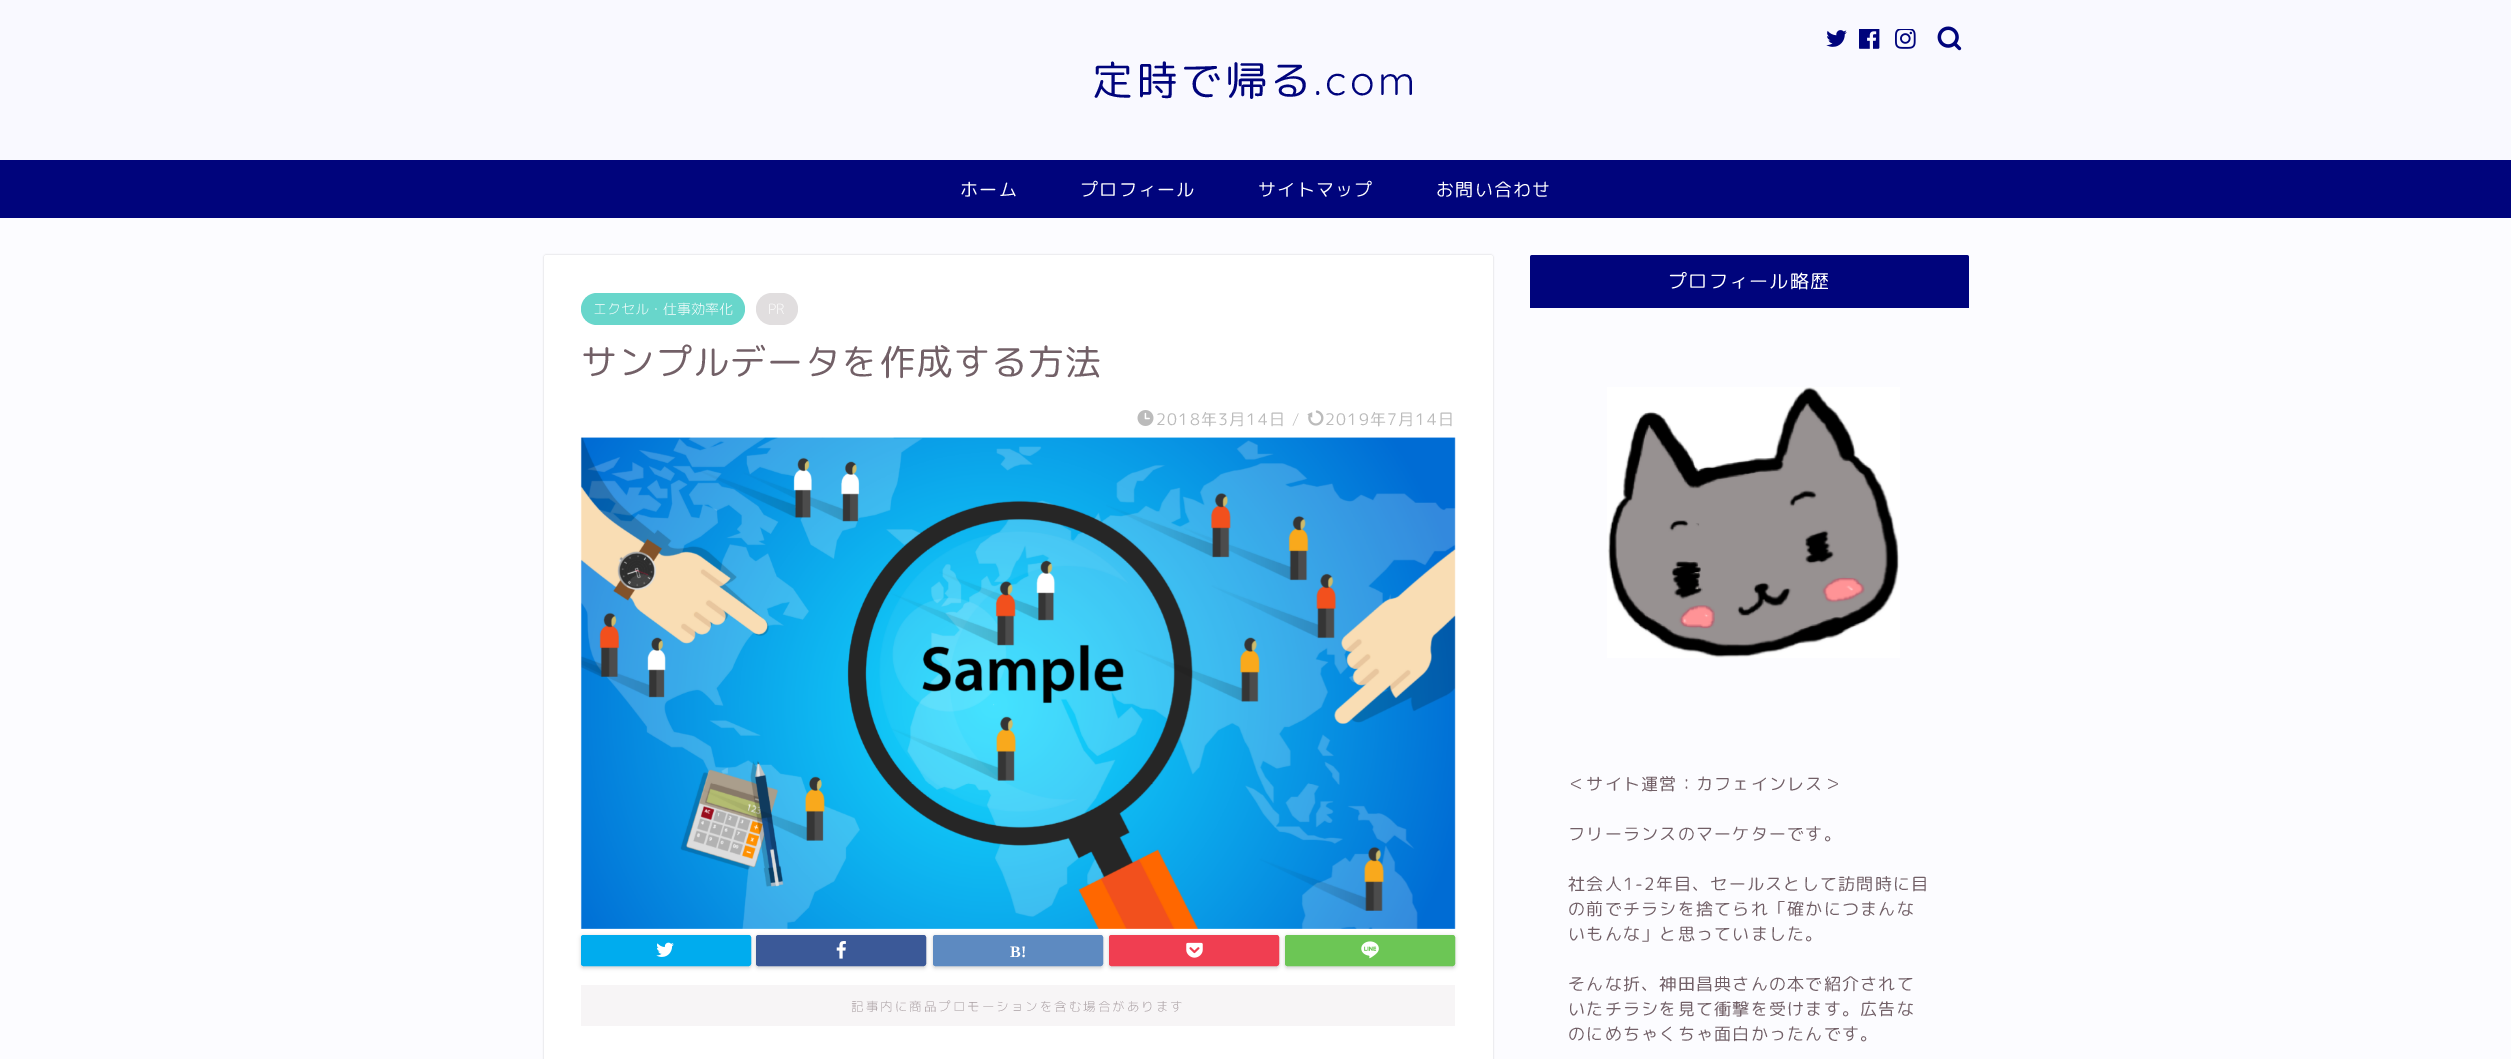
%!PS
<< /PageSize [2511 1059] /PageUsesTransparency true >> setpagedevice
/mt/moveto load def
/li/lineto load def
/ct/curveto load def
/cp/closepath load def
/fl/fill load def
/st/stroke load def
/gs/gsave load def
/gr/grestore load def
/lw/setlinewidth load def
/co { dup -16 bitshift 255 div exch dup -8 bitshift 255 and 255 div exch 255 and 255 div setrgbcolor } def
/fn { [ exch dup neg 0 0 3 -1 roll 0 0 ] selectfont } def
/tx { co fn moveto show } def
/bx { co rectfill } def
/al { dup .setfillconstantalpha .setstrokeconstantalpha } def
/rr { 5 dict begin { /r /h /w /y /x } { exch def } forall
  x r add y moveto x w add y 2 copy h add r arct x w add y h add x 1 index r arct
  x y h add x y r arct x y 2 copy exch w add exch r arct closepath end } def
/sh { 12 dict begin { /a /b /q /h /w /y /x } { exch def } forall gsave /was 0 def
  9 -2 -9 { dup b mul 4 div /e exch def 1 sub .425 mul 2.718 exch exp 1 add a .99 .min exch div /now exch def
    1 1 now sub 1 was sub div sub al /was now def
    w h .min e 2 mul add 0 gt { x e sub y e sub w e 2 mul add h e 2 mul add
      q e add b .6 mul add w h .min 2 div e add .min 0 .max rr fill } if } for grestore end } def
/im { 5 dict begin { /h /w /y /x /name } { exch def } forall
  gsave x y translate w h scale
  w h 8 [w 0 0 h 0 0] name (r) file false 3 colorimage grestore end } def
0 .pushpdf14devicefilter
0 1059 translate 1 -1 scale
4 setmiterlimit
0 0 2511 1059 16#FCFCFF bx
0 0 2511 160 16#F9F9FF bx
(media/1.raw) 1826 30 21 17 im
(media/2.raw) 1859 29 21 20 im
(media/3.raw) 1895 29 21 20 im
(media/4.raw) 1937 26 25 25 im
0 160 2511 58 16#00047C bx
16#000000 co
544 255 949 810 2.5 1 .18 sh
16#FFFFFF co
544 255 949 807 2.5 rr fl
16#68D6CB co
581 293 164 32 16 rr fl
16#E1DEDF co
756 293 42 32 16 rr fl
(media/5.raw) 1137 410 17 16 im
(media/6.raw) 1307 410 17 16 im
(media/7.raw) 580 437 876 492 im
16#000000 co
581 936 170 32 2.5 2 .18 sh
16#00ACEE co
582.5 936.5 167 28 1 rr gs fl gr
3 lw
st
(media/8.raw) 656 942 18 15 im
16#000000 co
756 936 170 32 2.5 2 .18 sh
16#3B5998 co
757.5 936.5 167 28 1 rr gs fl gr
st
(media/9.raw) 836 941 10 18 im
16#000000 co
933 936 170 32 2.5 2 .18 sh
16#5D8AC1 co
934.5 936.5 167 28 1 rr gs fl gr
st
16#000000 co
1109 936 170 32 2.5 2 .18 sh
16#F03E51 co
1110.5 936.5 167 28 1 rr gs fl gr
st
(media/10.raw) 1186 942 17 16 im
16#000000 co
1285 936 170 32 2.5 2 .18 sh
16#6CC655 co
1286.5 936.5 167 28 1 rr gs fl gr
st
(media/11.raw) 1361 941 18 18 im
581 985 874 41 16#F7F5F6 bx
16#00047C co
1532.5 255 mt 1966.5 255 li 1968 255 1969 256 1969 257.5 ct 1969 308 li 1530 308 li 1530 257.5 li 1530 256 1531 255 1532.5 255 ct cp fl
(media/12.raw) 1607 387 293 271 im
/RoundedMplus1c-Regular 40.75 fn
1092 95 mt 3.75 0 (定時で帰る) ashow
/Quicksand-Light 40.75 fn
1314 95 mt 3.75 0 (.com) ashow
/RoundedMplus1c-Regular 18 fn
16#FFFFFF co
960 196 mt 1.25 0 (ホーム) ashow
1080 196 mt 1.25 0 (プロフィール) ashow
1258 196 mt 1.25 0 (サイトマップ) ashow
1436 196 mt 1.25 0 (お問い合わせ) ashow
(エクセル・仕事効率化) 593 314 /RoundedMplus1c-Light 14 16#FFFFFF tx
(PR) 768 314 /RoundedMplus1c-Light 14 16#FFFFFF tx
/RoundedMplus1c-Regular 36 fn
16#726067 co
581 375 mt 1.25 0 (サンプルデータを作成する方法) ashow
/RoundedMplus1c-Regular 16 fn
16#BBBBBB co
1156 425 mt 1.25 0 (2018年3月14日) ashow
/RoundedMplus1c-Light 16 fn
1292 425 mt 1.25 0 (/) ashow
/RoundedMplus1c-Regular 16 fn
1325 425 mt 1.25 0 (2019年7月14日) ashow
(B!) 1010 957 /LiberationSerif-Bold 16 16#FFFFFF tx
/RoundedMplus1c-Light 12.5 fn
16#A79CA0 co
851 1011 mt 2 0 (記事内に商品プロモーションを含む場合があります) ashow
/RoundedMplus1c-Regular 19 fn
16#FFFFFF co
1668 288 mt 1.25 0 (プロフィール略歴) ashow
/RoundedMplus1c-Regular 17 fn
16#726067 co
1568 790 mt 1.25 0 (＜サイト運営：カフェインレス＞) ashow
1568 840 mt 1.25 0 (フリーランスのマーケターです。) ashow
1568 890 mt 1.25 0 (社会人1-2年目、セールスとして訪問時に目) ashow
1568 915 mt 1.25 0 (の前でチラシを捨てられ「確かにつまんな) ashow
1568 940 mt 1.25 0 (いもんな」と思っていました。) ashow
1568 990 mt 1.25 0 (そんな折、神田昌典さんの本で紹介されて) ashow
1568 1015 mt 1.25 0 (いたチラシを見て衝撃を受けます。広告な) ashow
1568 1040 mt 1.25 0 (のにめちゃくちゃ面白かったんです。) ashow
.poppdf14devicefilter showpage
